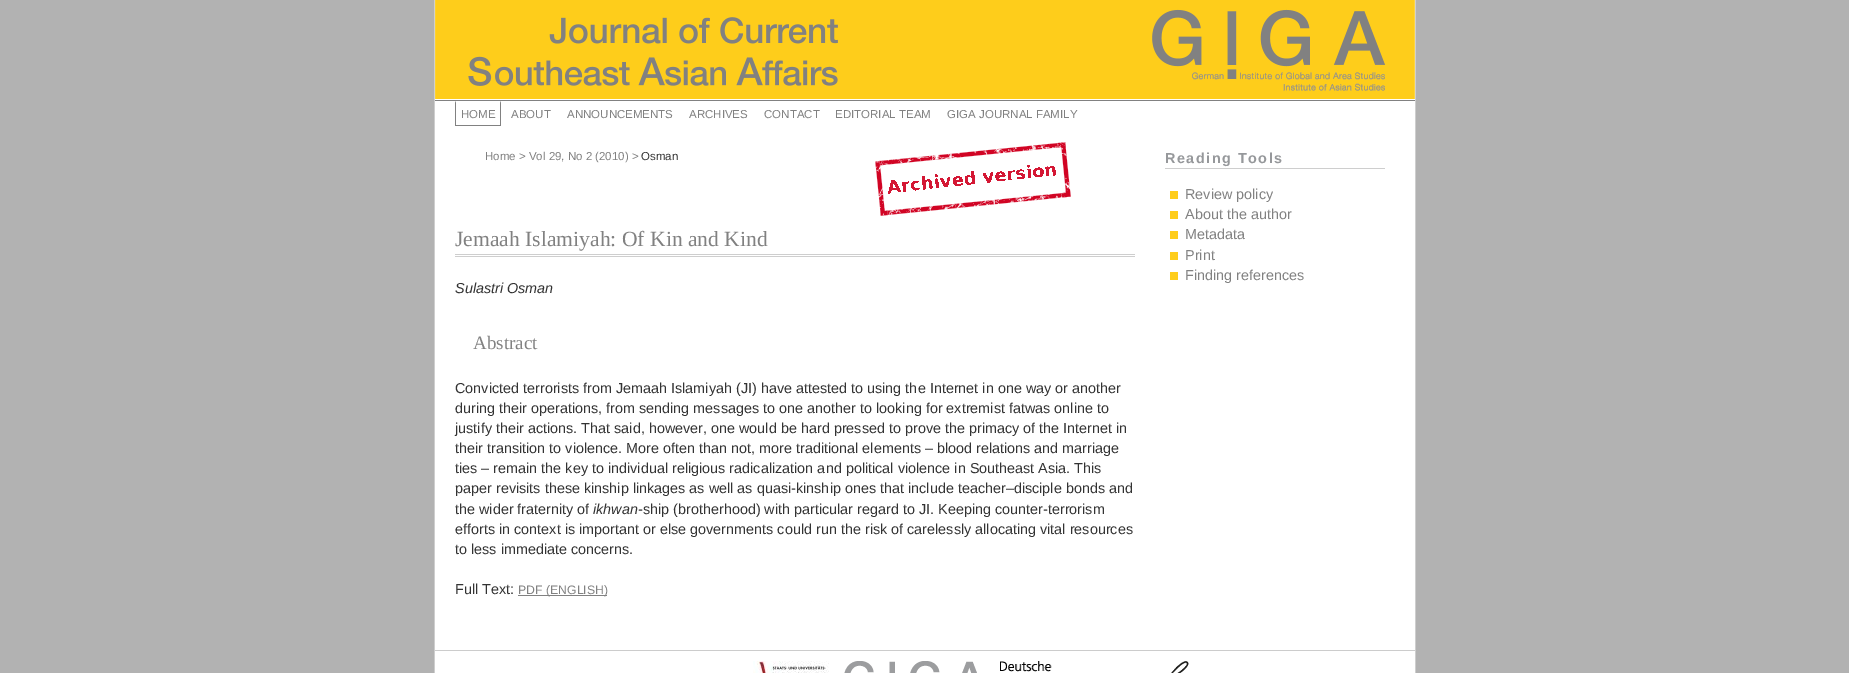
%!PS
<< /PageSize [1849 673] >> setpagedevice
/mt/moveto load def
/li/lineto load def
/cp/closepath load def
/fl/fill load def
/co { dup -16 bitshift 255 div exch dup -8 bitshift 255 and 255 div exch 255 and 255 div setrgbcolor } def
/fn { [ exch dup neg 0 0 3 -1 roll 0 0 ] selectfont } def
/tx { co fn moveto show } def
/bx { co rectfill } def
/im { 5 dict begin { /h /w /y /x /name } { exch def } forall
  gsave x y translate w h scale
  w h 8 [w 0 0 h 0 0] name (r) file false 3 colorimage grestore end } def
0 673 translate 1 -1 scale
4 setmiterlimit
0 0 1849 673 16#B2B2B2 bx
1415 0 1 673 16#CECECE bx
434 0 1 673 16#CECECE bx
(media/1.raw) 435 0 980 99 im
435 99 980 551 16#FFFFFF bx
435 100 980 1 16#818181 bx
501 101 mt 501 126 li 500 125 li 500 103 li cp fl
455 125 46 1 16#818181 bx
455 126 mt 455 101 li 456 103 li 456 125 li cp fl
(media/2.raw) 875 142 196 74 im
455 254 680 1 16#CECECE bx
455 256 680 1 16#CECECE bx
518 595 89 1 16#818181 bx
1165 168 220 1 16#CECECE bx
1170 191 8 8 16#FECD1B bx
1170 211 8 8 16#FECD1B bx
1170 231 8 8 16#FECD1B bx
1170 252 8 8 16#FECD1B bx
1170 272 8 8 16#FECD1B bx
435 651 980 22 16#FFFFFF bx
435 650 980 1 16#CCCCCC bx
(media/3.raw) 753 661 76 12 im
(media/4.raw) 844 661 133 12 im
(media/5.raw) 1000 661 52 11 im
(media/6.raw) 1171 661 18 12 im
(HOME) 461 118 /LiberationSans-Regular 11.5 16#818181 tx
(ABOUT) 511 118 /LiberationSans-Regular 11.5 16#818181 tx
(ANNOUNCEMENTS) 567 118 /LiberationSans-Regular 11.5 16#818181 tx
(ARCHIVES) 689 118 /LiberationSans-Regular 11.5 16#818181 tx
(CONTACT) 764 118 /LiberationSans-Regular 11.5 16#818181 tx
(EDITORIAL TEAM) 835 118 /LiberationSans-Regular 11.5 16#818181 tx
(GIGA JOURNAL FAMILY) 947 118 /LiberationSans-Regular 11.5 16#818181 tx
(Home > Vol 29, No 2 \(2010\) >) 485 160 /LiberationSans-Regular 11.5 16#818181 tx
(Osman) 641 160 /LiberationSans-Regular 11.5 16#333333 tx
(Jemaah Islamiyah: Of Kin and Kind) 455 246 /LiberationSerif-Regular 21.6 16#818181 tx
(Sulastri Osman) 455 293 /LiberationSans-Italic 14.4 16#333333 tx
(Abstract) 473 349 /LiberationSerif-Regular 19 16#818181 tx
(Convicted terrorists from Jemaah Islamiyah \(JI\) have attested to using the Internet in one way or another) 455 393 /LiberationSans-Regular 14.4 16#333333 tx
(during their operations, from sending messages to one another to looking for extremist fatwas online to) 455 413 /LiberationSans-Regular 14.4 16#333333 tx
(justify their actions. That said, however, one would be hard pressed to prove the primacy of the Internet in) 455 433 /LiberationSans-Regular 14.4 16#333333 tx
(their transition to violence. More often than not, more traditional elements – blood relations and marriage) 455 453 /LiberationSans-Regular 14.4 16#333333 tx
(ties – remain the key to individual religious radicalization and political violence in Southeast Asia. This) 455 473 /LiberationSans-Regular 14.4 16#333333 tx
(paper revisits these kinship linkages as well as quasi-kinship ones that include teacher–disciple bonds and) 455 493 /LiberationSans-Regular 14.4 16#333333 tx
(the wider fraternity of) 455 514 /LiberationSans-Regular 14.4 16#333333 tx
(ikhwan) 593 514 /LiberationSans-Italic 14.4 16#333333 tx
(-ship \(brotherhood\) with particular regard to JI. Keeping counter-terrorism) 638 514 /LiberationSans-Regular 14.4 16#333333 tx
(efforts in context is important or else governments could run the risk of carelessly allocating vital resources) 455 534 /LiberationSans-Regular 14.4 16#333333 tx
(to less immediate concerns.) 455 554 /LiberationSans-Regular 14.4 16#333333 tx
(Full Text:) 455 594 /LiberationSans-Regular 14.4 16#333333 tx
(PDF \(ENGLISH\)) 518 594 /LiberationSans-Regular 12.25 16#818181 tx
/LiberationSans-Bold 14.4 fn
16#96989B co
1165 163 mt 1.5 0 (Reading Tools) ashow
(Review policy) 1185 199 /LiberationSans-Regular 14.4 16#818181 tx
(About the author) 1185 219 /LiberationSans-Regular 14.4 16#818181 tx
(Metadata) 1185 239 /LiberationSans-Regular 14.4 16#818181 tx
(Print) 1185 260 /LiberationSans-Regular 14.4 16#818181 tx
(Finding references) 1185 280 /LiberationSans-Regular 14.4 16#818181 tx
showpage
